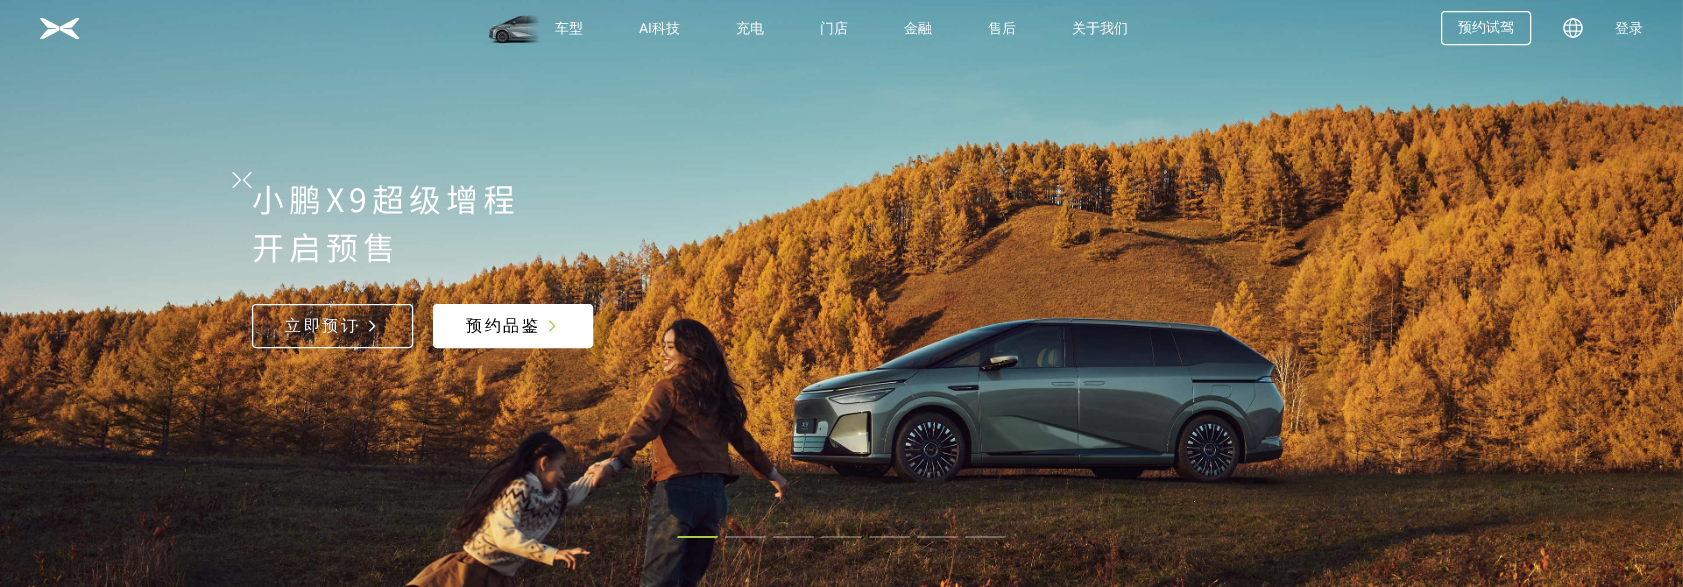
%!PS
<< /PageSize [1683 587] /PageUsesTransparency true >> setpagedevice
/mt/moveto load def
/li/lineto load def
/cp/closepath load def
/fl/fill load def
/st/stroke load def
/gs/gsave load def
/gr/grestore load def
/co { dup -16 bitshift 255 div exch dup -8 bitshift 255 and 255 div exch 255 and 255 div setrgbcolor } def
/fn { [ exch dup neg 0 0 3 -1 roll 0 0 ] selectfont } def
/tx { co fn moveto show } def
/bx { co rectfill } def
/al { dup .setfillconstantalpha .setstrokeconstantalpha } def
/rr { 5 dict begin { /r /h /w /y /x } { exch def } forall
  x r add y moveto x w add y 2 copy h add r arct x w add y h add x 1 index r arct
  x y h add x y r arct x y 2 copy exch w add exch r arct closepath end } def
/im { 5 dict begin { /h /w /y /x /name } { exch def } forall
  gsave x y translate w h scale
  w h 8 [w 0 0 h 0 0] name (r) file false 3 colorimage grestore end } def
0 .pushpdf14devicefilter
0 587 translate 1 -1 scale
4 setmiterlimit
0 0 1683 587 16#FFFFFF bx
(media/4.raw) 0 0 1683 587 im
(media/1.raw) 40 18 40 21 im
(media/2.raw) 489 15 51 29 im
1441.5 11.5 89 33 3.5 rr st
(media/3.raw) 1563 18 20 20 im
(media/5.raw) 232 172 20 16 im
252.5 304.5 160 43 3.5 rr st
(media/6.raw) 368 320 8 12 im
433.5 304.5 159 43 3.5 rr st
gs
434 305 158 42 3 rr clip newpath
433 305 161 42 4 rr fl
gr
(media/7.raw) 548 320 8 12 im
16#A4CE4C co
678 536 mt 718 536 li 717 538 li 677 538 li cp fl
0.3 al
16#FFFFFF co
726 536 mt 766 536 li 765 538 li 725 538 li cp fl
774 536 mt 814 536 li 813 538 li 773 538 li cp fl
822 536 mt 862 536 li 861 538 li 821 538 li cp fl
870 536 mt 910 536 li 909 538 li 869 538 li cp fl
918 536 mt 958 536 li 957 538 li 917 538 li cp fl
966 536 mt 1006 536 li 1005 538 li 965 538 li cp fl
1 al
(车型) 555 33 /WenQuanYiZenHei-Medium 14 16#FFFFFF tx
(AI) 639 33 /Roboto-Regular 14 16#FFFFFF tx
(科技) 652 33 /WenQuanYiZenHei-Medium 14 16#FFFFFF tx
(充电) 736 33 /WenQuanYiZenHei-Medium 14 16#FFFFFF tx
(门店) 820 33 /WenQuanYiZenHei-Medium 14 16#FFFFFF tx
(金融) 904 33 /WenQuanYiZenHei-Medium 14 16#FFFFFF tx
(售后) 988 33 /WenQuanYiZenHei-Medium 14 16#FFFFFF tx
(关于我们) 1072 33 /WenQuanYiZenHei-Medium 14 16#FFFFFF tx
(预约试驾) 1458 32 /WenQuanYiZenHei-Medium 14 16#FFFFFF tx
(登录) 1615 33 /WenQuanYiZenHei-Medium 14 16#FFFFFF tx
/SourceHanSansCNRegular-Regular 32 fn
252 212 mt 5 0 (小鹏X9超级增程) ashow
252 260 mt 5 0 (开启预售) ashow
/WenQuanYiZenHei-Medium 16 fn
285 331 mt 2.5 0 (立即预订) ashow
16#000000 co
466 331 mt 2.5 0 (预约品鉴) ashow
.poppdf14devicefilter showpage
